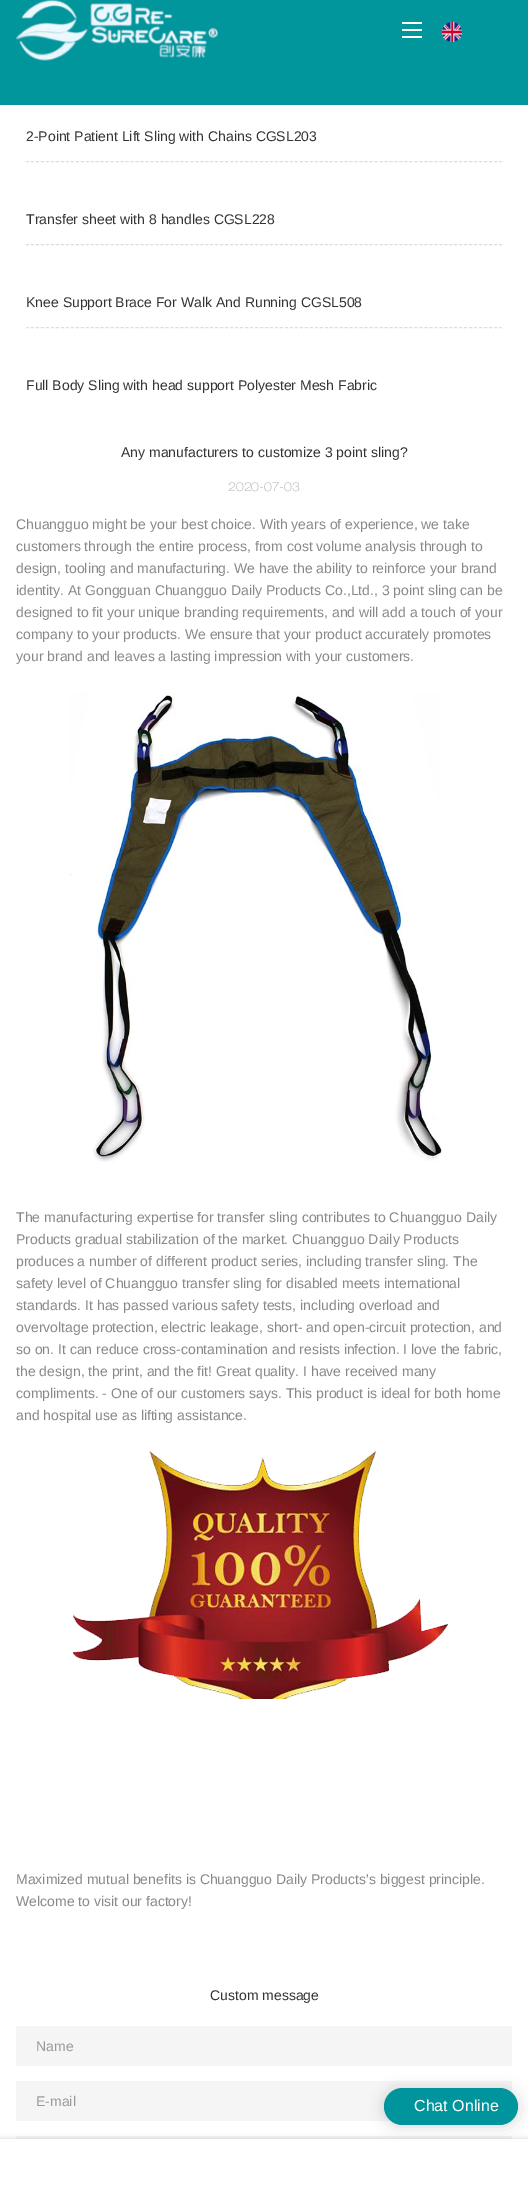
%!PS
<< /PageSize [528 2195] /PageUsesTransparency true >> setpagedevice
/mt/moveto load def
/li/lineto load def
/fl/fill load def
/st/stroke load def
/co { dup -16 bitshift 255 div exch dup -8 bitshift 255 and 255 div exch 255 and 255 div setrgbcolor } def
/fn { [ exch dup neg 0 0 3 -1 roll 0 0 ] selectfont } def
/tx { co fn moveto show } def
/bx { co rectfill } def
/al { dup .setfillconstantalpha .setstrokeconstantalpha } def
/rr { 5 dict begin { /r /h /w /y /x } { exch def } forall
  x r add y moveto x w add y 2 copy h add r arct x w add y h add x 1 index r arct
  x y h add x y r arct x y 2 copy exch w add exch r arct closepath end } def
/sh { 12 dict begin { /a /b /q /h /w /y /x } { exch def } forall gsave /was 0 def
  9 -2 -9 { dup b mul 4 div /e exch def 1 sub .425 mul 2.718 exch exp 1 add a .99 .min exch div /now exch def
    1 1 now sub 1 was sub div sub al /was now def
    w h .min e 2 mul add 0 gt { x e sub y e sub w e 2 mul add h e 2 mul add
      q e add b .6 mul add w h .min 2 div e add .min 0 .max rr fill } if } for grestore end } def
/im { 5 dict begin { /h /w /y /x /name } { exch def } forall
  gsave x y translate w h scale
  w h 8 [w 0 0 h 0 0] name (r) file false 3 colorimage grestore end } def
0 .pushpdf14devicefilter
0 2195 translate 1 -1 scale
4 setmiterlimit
0 0 528 2195 16#FFFFFF bx
0 0 528 105 16#01959C bx
(media/1.raw) 16 0 203 61 im
402 22 20 2 16#FFFFFF bx
402 29 20 2 16#FFFFFF bx
402 36 20 2 16#FFFFFF bx
(media/2.raw) 442 21 20 21 im
16#DDDDDD co
[3 1.98] 0 setdash
26 161.5 mt 502 161.5 li st
26 244.5 mt 502 244.5 li st
26 327.5 mt 502 327.5 li st
(media/3.raw) 69 692 373 470 im
(media/4.raw) 73 1451 376 248 im
16 2026 496 40 16#F5F5F5 bx
16 2081 496 40 16#F5F5F5 bx
16 2136 496 3 16#F5F5F5 bx
16#000000 co
0 2139 528 56 0 3 .16 sh
0 2139 528 56 16#FFFFFF bx
16#000000 co
384 2089 134 37 18.5 7.5 .15 sh
16#00959C co
384 2088 134 37 18.5 rr fl
(2-Point Patient Lift Sling with Chains CGSL203) 26 141 /LiberationSans-Regular 14 16#333333 tx
(Transfer sheet with 8 handles CGSL228) 26 224 /LiberationSans-Regular 14 16#333333 tx
(Knee Support Brace For Walk And Running CGSL508) 26 307 /LiberationSans-Regular 14 16#333333 tx
(Full Body Sling with head support Polyester Mesh Fabric) 26 390 /LiberationSans-Regular 14 16#333333 tx
(Any manufacturers to customize 3 point sling?) 121 457 /LiberationSans-Regular 14 16#333333 tx
(2020-07-03) 228 491 /HelveticaNeue-ExtraLight 12 16#AAAAAA tx
(Chuangguo might be your best choice. With years of experience, we take) 16 529 /LiberationSans-Regular 14 16#888888 tx
(customers through the entire process, from cost volume analysis through to) 16 551 /LiberationSans-Regular 14 16#888888 tx
(design, tooling and manufacturing. We have the ability to reinforce your brand) 16 573 /LiberationSans-Regular 14 16#888888 tx
(identity. At Gongguan Chuangguo Daily Products Co.,Ltd., 3 point sling can be) 16 595 /LiberationSans-Regular 14 16#888888 tx
(designed to fit your unique branding requirements, and will add a touch of your) 16 617 /LiberationSans-Regular 14 16#888888 tx
(company to your products. We ensure that your product accurately promotes) 16 639 /LiberationSans-Regular 14 16#888888 tx
(your brand and leaves a lasting impression with your customers.) 16 661 /LiberationSans-Regular 14 16#888888 tx
(The manufacturing expertise for transfer sling contributes to Chuangguo Daily) 16 1222 /LiberationSans-Regular 14 16#888888 tx
(Products gradual stabilization of the market. Chuangguo Daily Products) 16 1244 /LiberationSans-Regular 14 16#888888 tx
(produces a number of different product series, including transfer sling. The) 16 1266 /LiberationSans-Regular 14 16#888888 tx
(safety level of Chuangguo transfer sling for disabled meets international) 16 1288 /LiberationSans-Regular 14 16#888888 tx
(standards. It has passed various safety tests, including overload and) 16 1310 /LiberationSans-Regular 14 16#888888 tx
(overvoltage protection, electric leakage, short- and open-circuit protection, and) 16 1332 /LiberationSans-Regular 14 16#888888 tx
(so on. It can reduce cross-contamination and resists infection. I love the fabric,) 16 1354 /LiberationSans-Regular 14 16#888888 tx
(the design, the print, and the fit! Great quality. I have received many) 16 1376 /LiberationSans-Regular 14 16#888888 tx
(compliments. - One of our customers says. This product is ideal for both home) 16 1398 /LiberationSans-Regular 14 16#888888 tx
(and hospital use as lifting assistance.) 16 1420 /LiberationSans-Regular 14 16#888888 tx
(Maximized mutual benefits is Chuangguo Daily Products's biggest principle.) 16 1884 /LiberationSans-Regular 14 16#888888 tx
(Welcome to visit our factory!) 16 1906 /LiberationSans-Regular 14 16#888888 tx
(Custom message) 210 2000 /LiberationSans-Regular 14 16#333333 tx
(Name) 36 2051 /LiberationSans-Regular 14 16#999999 tx
(E-mail) 36 2106 /LiberationSans-Regular 14 16#999999 tx
(Chat Online) 414 2111 /LiberationSans-Regular 16 16#FFFFFF tx
.poppdf14devicefilter showpage
